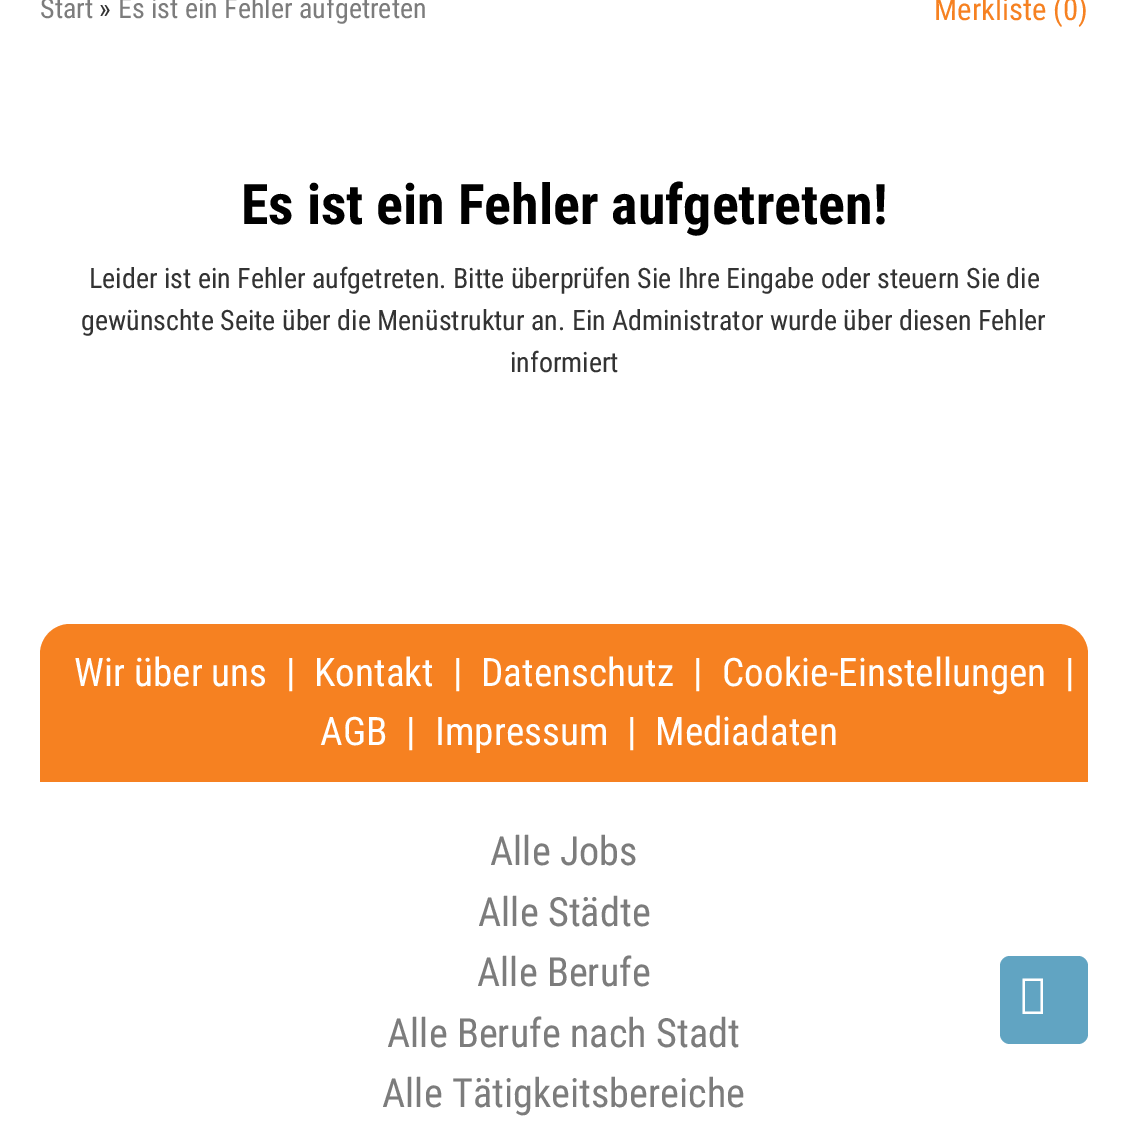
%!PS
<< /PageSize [1128 1123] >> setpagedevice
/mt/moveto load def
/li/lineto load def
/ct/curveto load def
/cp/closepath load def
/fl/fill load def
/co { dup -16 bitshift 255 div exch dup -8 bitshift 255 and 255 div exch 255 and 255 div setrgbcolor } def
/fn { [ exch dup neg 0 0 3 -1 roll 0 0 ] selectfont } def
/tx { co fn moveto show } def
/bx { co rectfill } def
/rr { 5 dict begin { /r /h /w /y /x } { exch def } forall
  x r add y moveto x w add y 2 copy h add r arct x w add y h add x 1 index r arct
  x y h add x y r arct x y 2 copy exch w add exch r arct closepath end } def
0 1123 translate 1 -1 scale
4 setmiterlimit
0 0 1128 1123 16#FFFFFF bx
16#61A4C2 co
1000 956 88 88 10 rr fl
16#FFFFFF co
1022.5 1014 mt 1022.5 978.5 li 1043 978.5 li 1043 1014 li cp 1025 1011.5 mt 1040.5 1011.5 li 1040.5 981 li 1025 981 li cp fl
16#F68121 co
70 624 mt 1058 624 li 1074.5 624 1088 637.5 1088 654 ct 1088 782 li 40 782 li 40 654 li 40 637.5 53.5 624 70 624 ct cp fl
(Start) 40 18 /RobotoCondensed-Regular 28 16#7C7C7C tx
(») 99 18 /RobotoCondensed-Regular 28 16#333333 tx
(Es ist ein Fehler aufgetreten) 118 18 /RobotoCondensed-Regular 28 16#7C7C7C tx
(Merkliste \(0\)) 934 20 /RobotoCondensed-Regular 30.75 16#F68121 tx
(Es ist ein Fehler aufgetreten!) 241 224 /RobotoCondensed-Bold 56 16#000000 tx
(Leider ist ein Fehler aufgetreten. Bitte überprüfen Sie Ihre Eingabe oder steuern Sie die) 89 288 /RobotoCondensed-Regular 28 16#333333 tx
(gewünschte Seite über die Menüstruktur an. Ein Administrator wurde über diesen Fehler) 81 330 /RobotoCondensed-Regular 28 16#333333 tx
(informiert) 510 372 /RobotoCondensed-Regular 28 16#333333 tx
(Wir über uns) 74 686 /RobotoCondensed-Regular 39.25 16#FFFFFF tx
(|) 286 686 /RobotoCondensed-Regular 39.25 16#FFFFFF tx
(Kontakt) 314 686 /RobotoCondensed-Regular 39.25 16#FFFFFF tx
(|) 453 686 /RobotoCondensed-Regular 39.25 16#FFFFFF tx
(Datenschutz) 481 686 /RobotoCondensed-Regular 39.25 16#FFFFFF tx
(|) 693 686 /RobotoCondensed-Regular 39.25 16#FFFFFF tx
(Cookie-Einstellungen) 722 686 /RobotoCondensed-Regular 39.25 16#FFFFFF tx
(|) 1065 686 /RobotoCondensed-Regular 39.25 16#FFFFFF tx
(AGB) 320 745 /RobotoCondensed-Regular 39.25 16#FFFFFF tx
(|) 406 745 /RobotoCondensed-Regular 39.25 16#FFFFFF tx
(Impressum) 435 745 /RobotoCondensed-Regular 39.25 16#FFFFFF tx
(|) 627 745 /RobotoCondensed-Regular 39.25 16#FFFFFF tx
(Mediadaten) 655 745 /RobotoCondensed-Regular 39.25 16#FFFFFF tx
(Alle Jobs) 490 865 /RobotoCondensed-Regular 40.25 16#7C7C7C tx
(Alle Städte) 478 926 /RobotoCondensed-Regular 40.25 16#7C7C7C tx
(Alle Berufe) 477 986 /RobotoCondensed-Regular 40.25 16#7C7C7C tx
(Alle Berufe nach Stadt) 387 1047 /RobotoCondensed-Regular 40.25 16#7C7C7C tx
(Alle Tätigkeitsbereiche) 382 1107 /RobotoCondensed-Regular 40.25 16#7C7C7C tx
showpage
